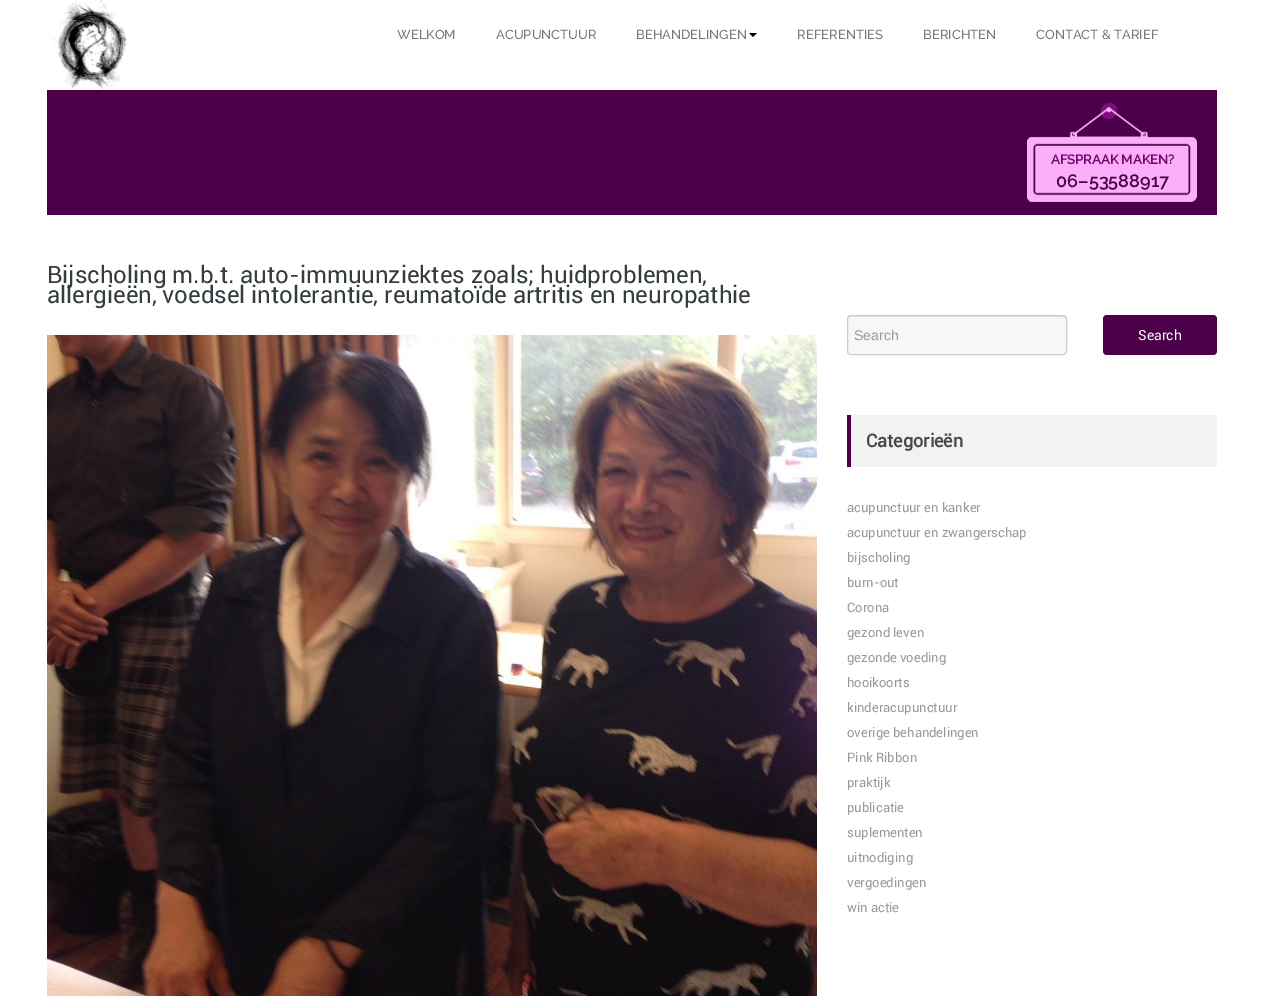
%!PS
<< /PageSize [1264 996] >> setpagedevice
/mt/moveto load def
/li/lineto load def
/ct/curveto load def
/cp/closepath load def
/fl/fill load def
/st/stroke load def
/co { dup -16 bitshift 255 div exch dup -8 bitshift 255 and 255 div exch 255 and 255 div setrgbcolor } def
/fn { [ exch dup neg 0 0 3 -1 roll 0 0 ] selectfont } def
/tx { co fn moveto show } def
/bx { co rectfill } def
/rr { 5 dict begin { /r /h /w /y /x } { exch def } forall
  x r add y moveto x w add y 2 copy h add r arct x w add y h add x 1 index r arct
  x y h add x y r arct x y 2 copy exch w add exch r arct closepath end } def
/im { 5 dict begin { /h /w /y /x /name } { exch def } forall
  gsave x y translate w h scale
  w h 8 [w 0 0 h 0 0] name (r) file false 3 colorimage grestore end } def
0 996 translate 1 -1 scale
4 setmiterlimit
0 0 1264 996 16#FFFFFF bx
(media/1.raw) 50 0 77 89 im
16#000000 co
749 33 mt 757 33 li 753 37 li cp fl
47 90 1170 125 16#4B0049 bx
(media/2.raw) 1027 102 170 100 im
(media/3.raw) 47 335 770 661 im
16#F7F7F7 co
847 315 220 40 4 rr fl
16#E4E4E4 co
851 317 mt 1063 317 li 1065 317 1066 318 1066 320 ct 1066 319 li 1066 317 1065 316 1063 316 ct 851 316 li 849 316 848 317 848 319 ct 848 320 li 848 318 849 317 851 317 ct cp fl
16#CCCCCC co
847.5 315.5 219 39 3.5 rr st
16#4B0049 co
1103 315 114 40 4 rr fl
851 415 366 52 16#F2F2F2 bx
847 415 4 52 16#4B0049 bx
(WELKOM) 397 39 /Raleway-Medium 13 16#72797B tx
(ACUPUNCTUUR) 496 39 /Raleway-Medium 13 16#72797B tx
(BEHANDELINGEN) 636 39 /Raleway-Medium 13 16#72797B tx
(REFERENTIES) 797 39 /Raleway-Medium 13 16#72797B tx
(BERICHTEN) 923 39 /Raleway-Medium 13 16#72797B tx
(CONTACT & TARIEF) 1036 39 /Raleway-Medium 13 16#72797B tx
(AFSPRAAK MAKEN?) 1051 164 /Raleway-Bold 13 16#6E066B tx
(06–53588917) 1056 187 /Raleway-SemiBold 18 16#4B0049 tx
(Bijscholing m.b.t. auto-immuunziektes zoals; huidproblemen,) 47 283 /Roboto-Regular 24 16#353C3F tx
(allergieën, voedsel intolerantie, reumatoïde artritis en neuropathie) 47 303 /Roboto-Regular 24 16#353C3F tx
(Search) 854 340 /LiberationSans-Regular 14 16#999999 tx
(Search) 1138 340 /Roboto-Regular 14 16#FFFFFF tx
(Categorieën) 866 447 /Roboto-Bold 18 16#4A4849 tx
(acupunctuur en kanker) 847 512 /Roboto-Regular 13 16#999999 tx
(acupunctuur en zwangerschap) 847 537 /Roboto-Regular 13 16#999999 tx
(bijscholing) 847 562 /Roboto-Regular 13 16#999999 tx
(burn-out) 847 587 /Roboto-Regular 13 16#999999 tx
(Corona) 847 612 /Roboto-Regular 13 16#999999 tx
(gezond leven) 847 637 /Roboto-Regular 13 16#999999 tx
(gezonde voeding) 847 662 /Roboto-Regular 13 16#999999 tx
(hooikoorts) 847 687 /Roboto-Regular 13 16#999999 tx
(kinderacupunctuur) 847 712 /Roboto-Regular 13 16#999999 tx
(overige behandelingen) 847 737 /Roboto-Regular 13 16#999999 tx
(Pink Ribbon) 847 762 /Roboto-Regular 13 16#999999 tx
(praktijk) 847 787 /Roboto-Regular 13 16#999999 tx
(publicatie) 847 812 /Roboto-Regular 13 16#999999 tx
(suplementen) 847 837 /Roboto-Regular 13 16#999999 tx
(uitnodiging) 847 862 /Roboto-Regular 13 16#999999 tx
(vergoedingen) 847 887 /Roboto-Regular 13 16#999999 tx
(win actie) 847 912 /Roboto-Regular 13 16#999999 tx
showpage
